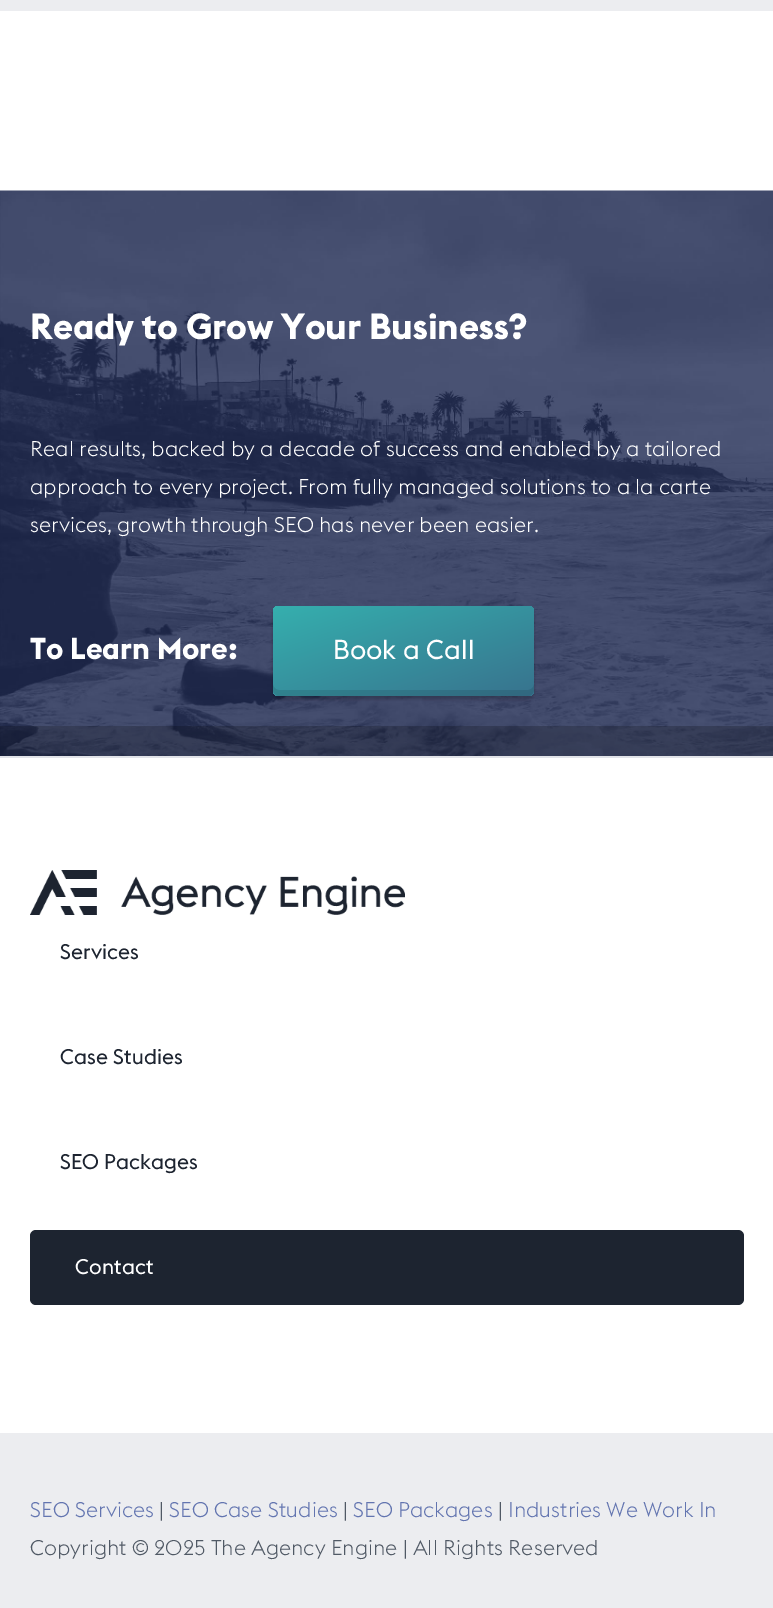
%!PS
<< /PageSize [773 1608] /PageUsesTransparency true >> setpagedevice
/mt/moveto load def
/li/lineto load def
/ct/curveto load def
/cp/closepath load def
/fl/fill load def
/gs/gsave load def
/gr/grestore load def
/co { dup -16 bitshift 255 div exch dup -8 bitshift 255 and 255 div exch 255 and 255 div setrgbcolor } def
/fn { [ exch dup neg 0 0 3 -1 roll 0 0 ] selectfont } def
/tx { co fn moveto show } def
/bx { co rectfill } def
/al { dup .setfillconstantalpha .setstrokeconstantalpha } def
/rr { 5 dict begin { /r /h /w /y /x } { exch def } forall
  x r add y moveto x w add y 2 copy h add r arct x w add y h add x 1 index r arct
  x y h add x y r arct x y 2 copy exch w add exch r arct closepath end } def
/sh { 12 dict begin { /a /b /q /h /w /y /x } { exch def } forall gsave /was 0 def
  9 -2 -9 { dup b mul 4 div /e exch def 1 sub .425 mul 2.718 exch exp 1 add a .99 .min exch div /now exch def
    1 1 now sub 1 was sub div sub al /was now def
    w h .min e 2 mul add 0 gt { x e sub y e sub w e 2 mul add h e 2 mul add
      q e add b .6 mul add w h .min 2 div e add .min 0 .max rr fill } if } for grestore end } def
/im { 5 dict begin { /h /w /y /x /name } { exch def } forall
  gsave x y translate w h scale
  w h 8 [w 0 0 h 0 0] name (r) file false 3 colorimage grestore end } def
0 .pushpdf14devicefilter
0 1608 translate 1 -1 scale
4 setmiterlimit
0 0 773 1608 16#FFFFFF bx
0 0 773 11 16#ECEDF0 bx
(media/1.raw) 0 190 773 566 im
16#000000 co
273 609 261 90 6 1.5 .2 sh
gs 273 606 261 90 6 rr clip newpath
<< /ShadingType 2 /ColorSpace /DeviceRGB /Coords [376 571 431 731] /Extend [true true] /Function << /FunctionType 2 /Domain [0 1] /C0 [.208 .686 .682] /C1 [.22 .451 .557] /N 1 >> >> shfill gr
0.1 al
273 684 mt 273 690 li 273 693 276 696 279 696 ct 528 696 li 531 696 534 693 534 690 ct 534 684 li 534 687 531 690 528 690 ct 279 690 li 276 690 273 687 273 684 ct cp fl
0.2 al
0 726 773 30 16#000000 bx
1 al
0 756 773 2 16#E1E3E8 bx
(media/2.raw) 30 870 375 45 im
16#1D2430 co
30 1230 714 75 6 rr fl
0 1433 773 175 16#ECEDF0 bx
(Ready to Grow Your Business?) 30 339 /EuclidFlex-Bold 36 16#FFFFFF tx
(Real results, backed by a decade of success and enabled by a tailored) 30 456 /EuclidFlex-Light 21 16#FFFFFF tx
(approach to every project. From fully managed solutions to a la carte) 30 494 /EuclidFlex-Light 21 16#FFFFFF tx
(services, growth through SEO has never been easier.) 30 532 /EuclidFlex-Light 21 16#FFFFFF tx
(To Learn More:) 30 659 /EuclidFlex-Bold 30 16#FFFFFF tx
(Book a Call) 333 659 /EuclidFlex-Regular 27 16#FFFFFF tx
(Services) 60 959 /EuclidFlex-Regular 21 16#1D2430 tx
(Case Studies) 60 1064 /EuclidFlex-Regular 21 16#1D2430 tx
(SEO Packages) 60 1169 /EuclidFlex-Regular 21 16#1D2430 tx
(Contact) 75 1274 /EuclidFlex-Regular 21 16#FFFFFF tx
(SEO Services) 30 1517 /EuclidFlex-Light 21 16#6375B0 tx
(|) 159 1517 /EuclidFlex-Light 21 16#505965 tx
(SEO Case Studies) 169 1517 /EuclidFlex-Light 21 16#6375B0 tx
(|) 343 1517 /EuclidFlex-Light 21 16#505965 tx
(SEO Packages) 353 1517 /EuclidFlex-Light 21 16#6375B0 tx
(|) 498 1517 /EuclidFlex-Light 21 16#505965 tx
(Industries We Work In) 508 1517 /EuclidFlex-Light 21 16#6375B0 tx
(Copyright © 2025 The Agency Engine | All Rights Reserved) 30 1555 /EuclidFlex-Light 21 16#505965 tx
.poppdf14devicefilter showpage
